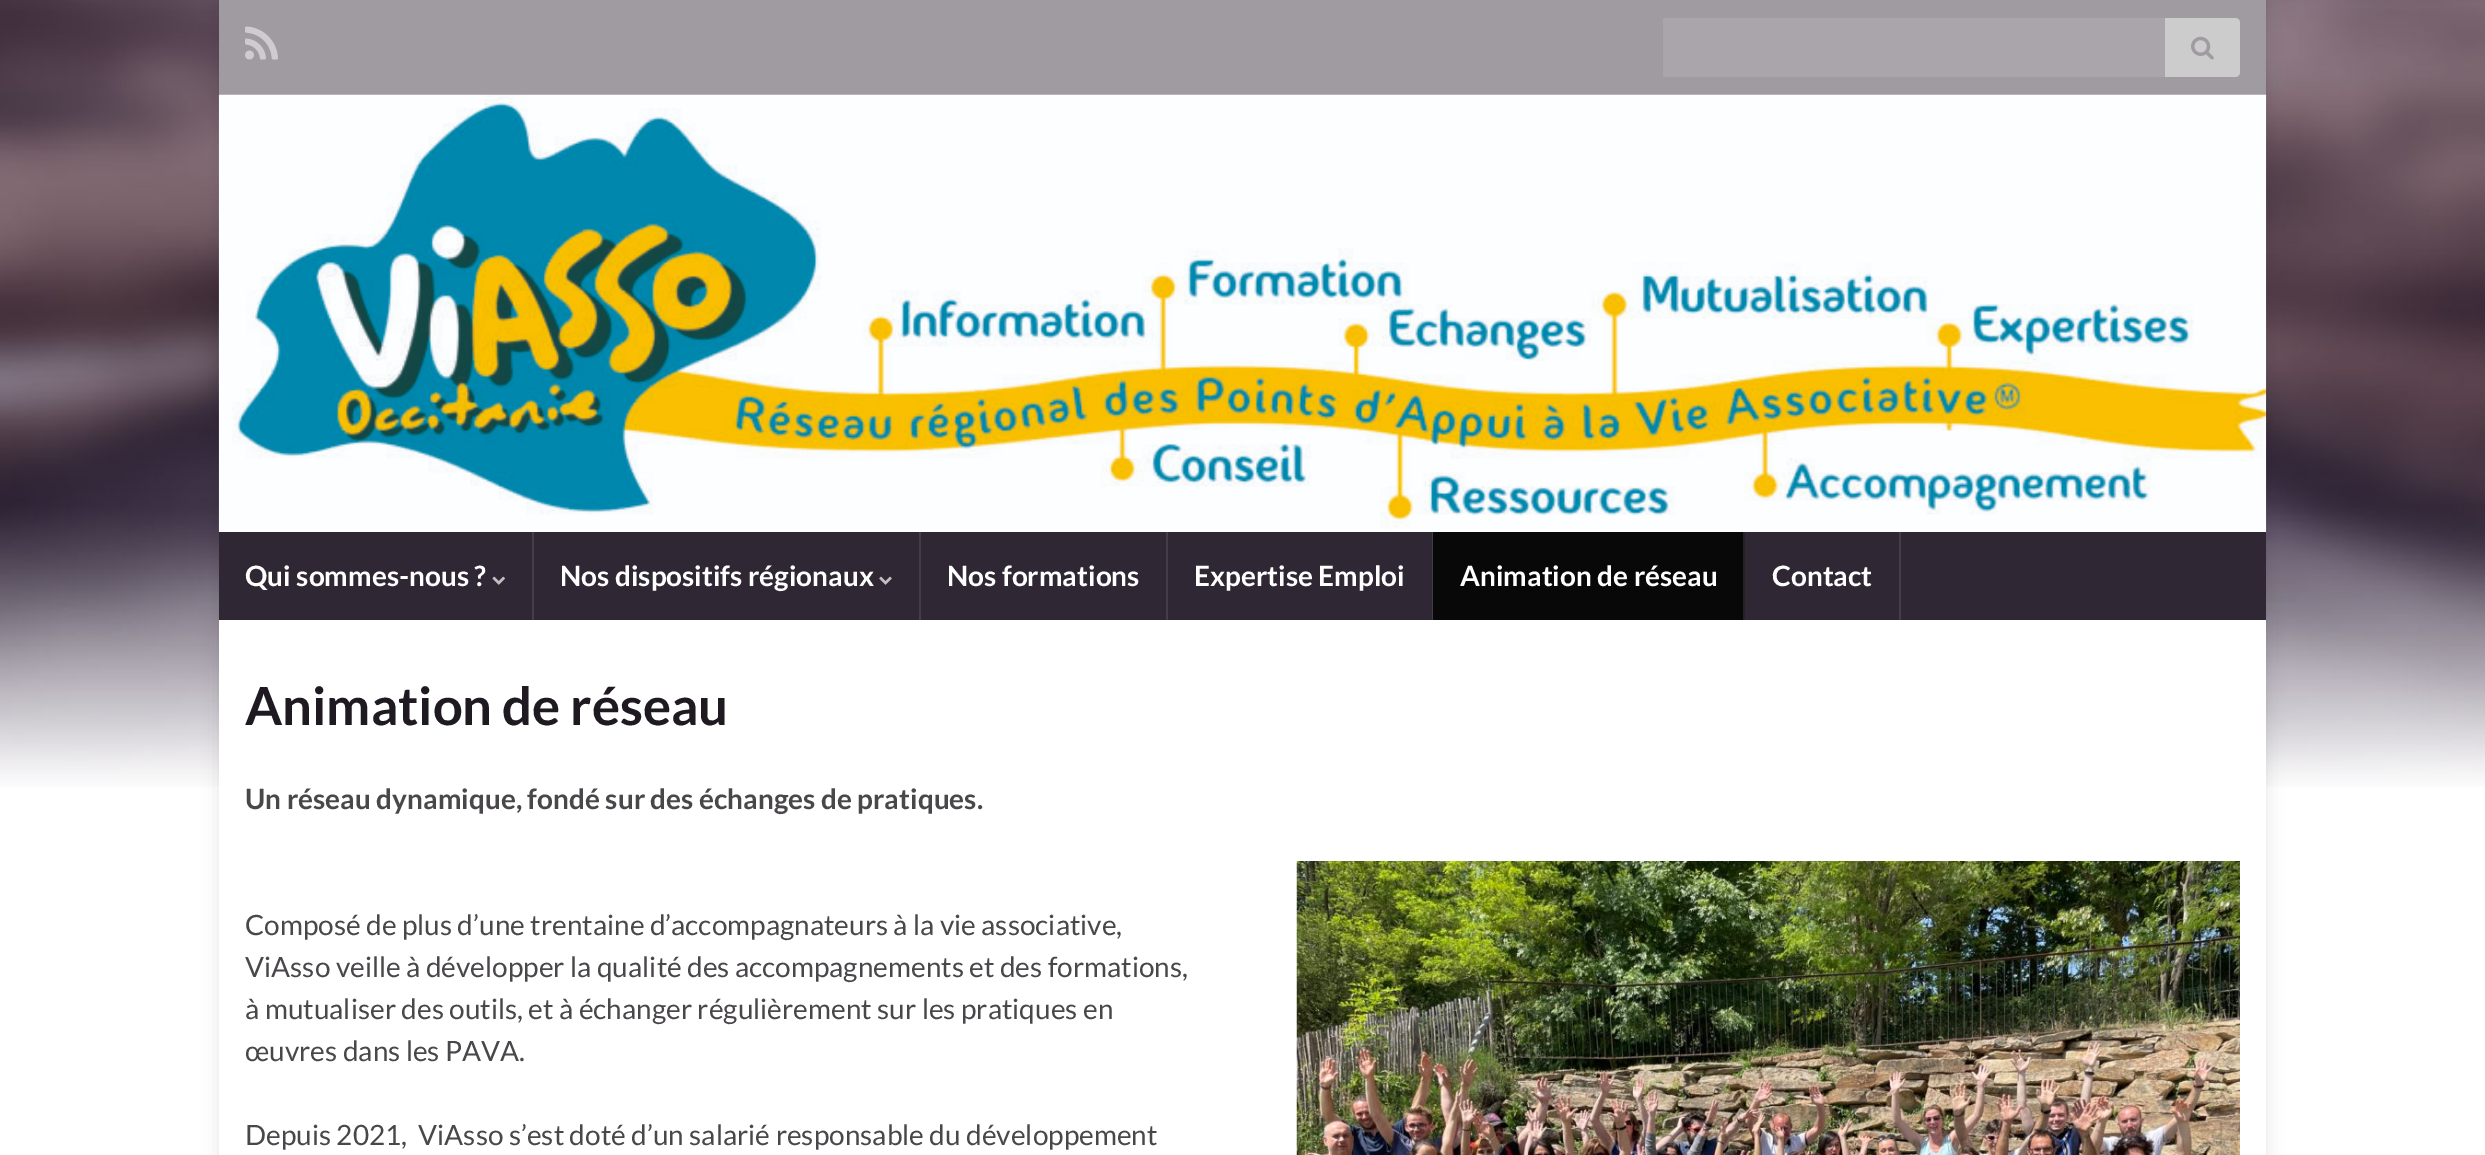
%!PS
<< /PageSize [2485 1155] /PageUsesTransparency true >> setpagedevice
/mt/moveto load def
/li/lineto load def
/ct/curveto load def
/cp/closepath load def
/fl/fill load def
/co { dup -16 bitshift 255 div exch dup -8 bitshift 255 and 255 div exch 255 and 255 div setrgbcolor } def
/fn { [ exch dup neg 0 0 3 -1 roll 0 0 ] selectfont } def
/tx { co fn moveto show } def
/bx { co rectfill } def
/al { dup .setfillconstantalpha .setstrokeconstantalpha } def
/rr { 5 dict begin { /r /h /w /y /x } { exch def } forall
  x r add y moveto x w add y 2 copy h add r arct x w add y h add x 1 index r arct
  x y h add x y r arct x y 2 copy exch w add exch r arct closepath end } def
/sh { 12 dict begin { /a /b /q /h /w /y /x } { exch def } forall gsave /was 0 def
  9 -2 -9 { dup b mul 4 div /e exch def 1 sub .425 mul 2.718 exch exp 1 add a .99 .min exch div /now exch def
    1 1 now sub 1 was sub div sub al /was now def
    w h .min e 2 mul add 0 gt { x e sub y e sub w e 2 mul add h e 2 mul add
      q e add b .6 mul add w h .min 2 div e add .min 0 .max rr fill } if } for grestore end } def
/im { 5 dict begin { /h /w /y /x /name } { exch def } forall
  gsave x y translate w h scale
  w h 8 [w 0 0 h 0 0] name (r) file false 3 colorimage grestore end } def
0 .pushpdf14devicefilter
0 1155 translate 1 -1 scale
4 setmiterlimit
0 0 2485 1155 16#FFFFFF bx
(media/1.raw) 0 0 2485 787 im
16#000000 co
219 0 2047 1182 0 9 .1 sh
219 0 2047 95 16#9F9BA0 bx
(media/2.raw) 245 26 33 34 im
1663 18 502 59 16#A9A5AA bx
16#CCCCCC co
2165 18 mt 2235 18 li 2238 18 2240 20 2240 23 ct 2240 72 li 2240 75 2238 77 2235 77 ct 2165 77 li cp fl
(media/3.raw) 2191 36 23 24 im
(media/4.raw) 218 94 2049 438 im
219 532 2047 88 16#2F2733 bx
532 532 2 88 16#443D47 bx
(media/5.raw) 492 576 13 9 im
919 532 2 88 16#443D47 bx
(media/6.raw) 879 576 13 9 im
1166 532 2 88 16#443D47 bx
1432 532 1 88 16#443D47 bx
1743 532 2 88 16#232323 bx
1433 532 310 88 16#080808 bx
1899 532 2 88 16#443D47 bx
219 620 2047 535 16#FFFFFF bx
(media/7.raw) 1296 861 944 294 im
(Qui sommes-nous ?) 245 586 /Lato-Bold 28 16#FFFFFF tx
(Nos dispositifs régionaux) 560 586 /Lato-Bold 28 16#FFFFFF tx
(Nos formations) 947 586 /Lato-Bold 28 16#FFFFFF tx
(Expertise Emploi) 1194 586 /Lato-Bold 28 16#FFFFFF tx
(Animation de réseau) 1460 586 /Lato-Bold 28 16#FFFFFF tx
(Contact) 1772 586 /Lato-Bold 28 16#FFFFFF tx
(Animation de réseau) 245 725 /Lato-Bold 52.5 16#1F1A22 tx
(Un réseau dynamique, fondé sur des échanges de pratiques.) 245 809 /Lato-Bold 28 16#4A474B tx
(Composé de plus d’une trentaine d’accompagnateurs à la vie associative,) 245 935 /Lato-Regular 28 16#4A474B tx
(ViAsso veille à développer la qualité des accompagnements et des formations,) 245 977 /Lato-Regular 28 16#4A474B tx
(à mutualiser des outils, et à échanger régulièrement sur les pratiques en) 245 1019 /Lato-Regular 28 16#4A474B tx
(œuvres dans les PAVA.) 245 1061 /Lato-Regular 28 16#4A474B tx
(Depuis 2021,  ViAsso s’est doté d’un salarié responsable du développement) 245 1145 /Lato-Regular 28 16#4A474B tx
.poppdf14devicefilter showpage
